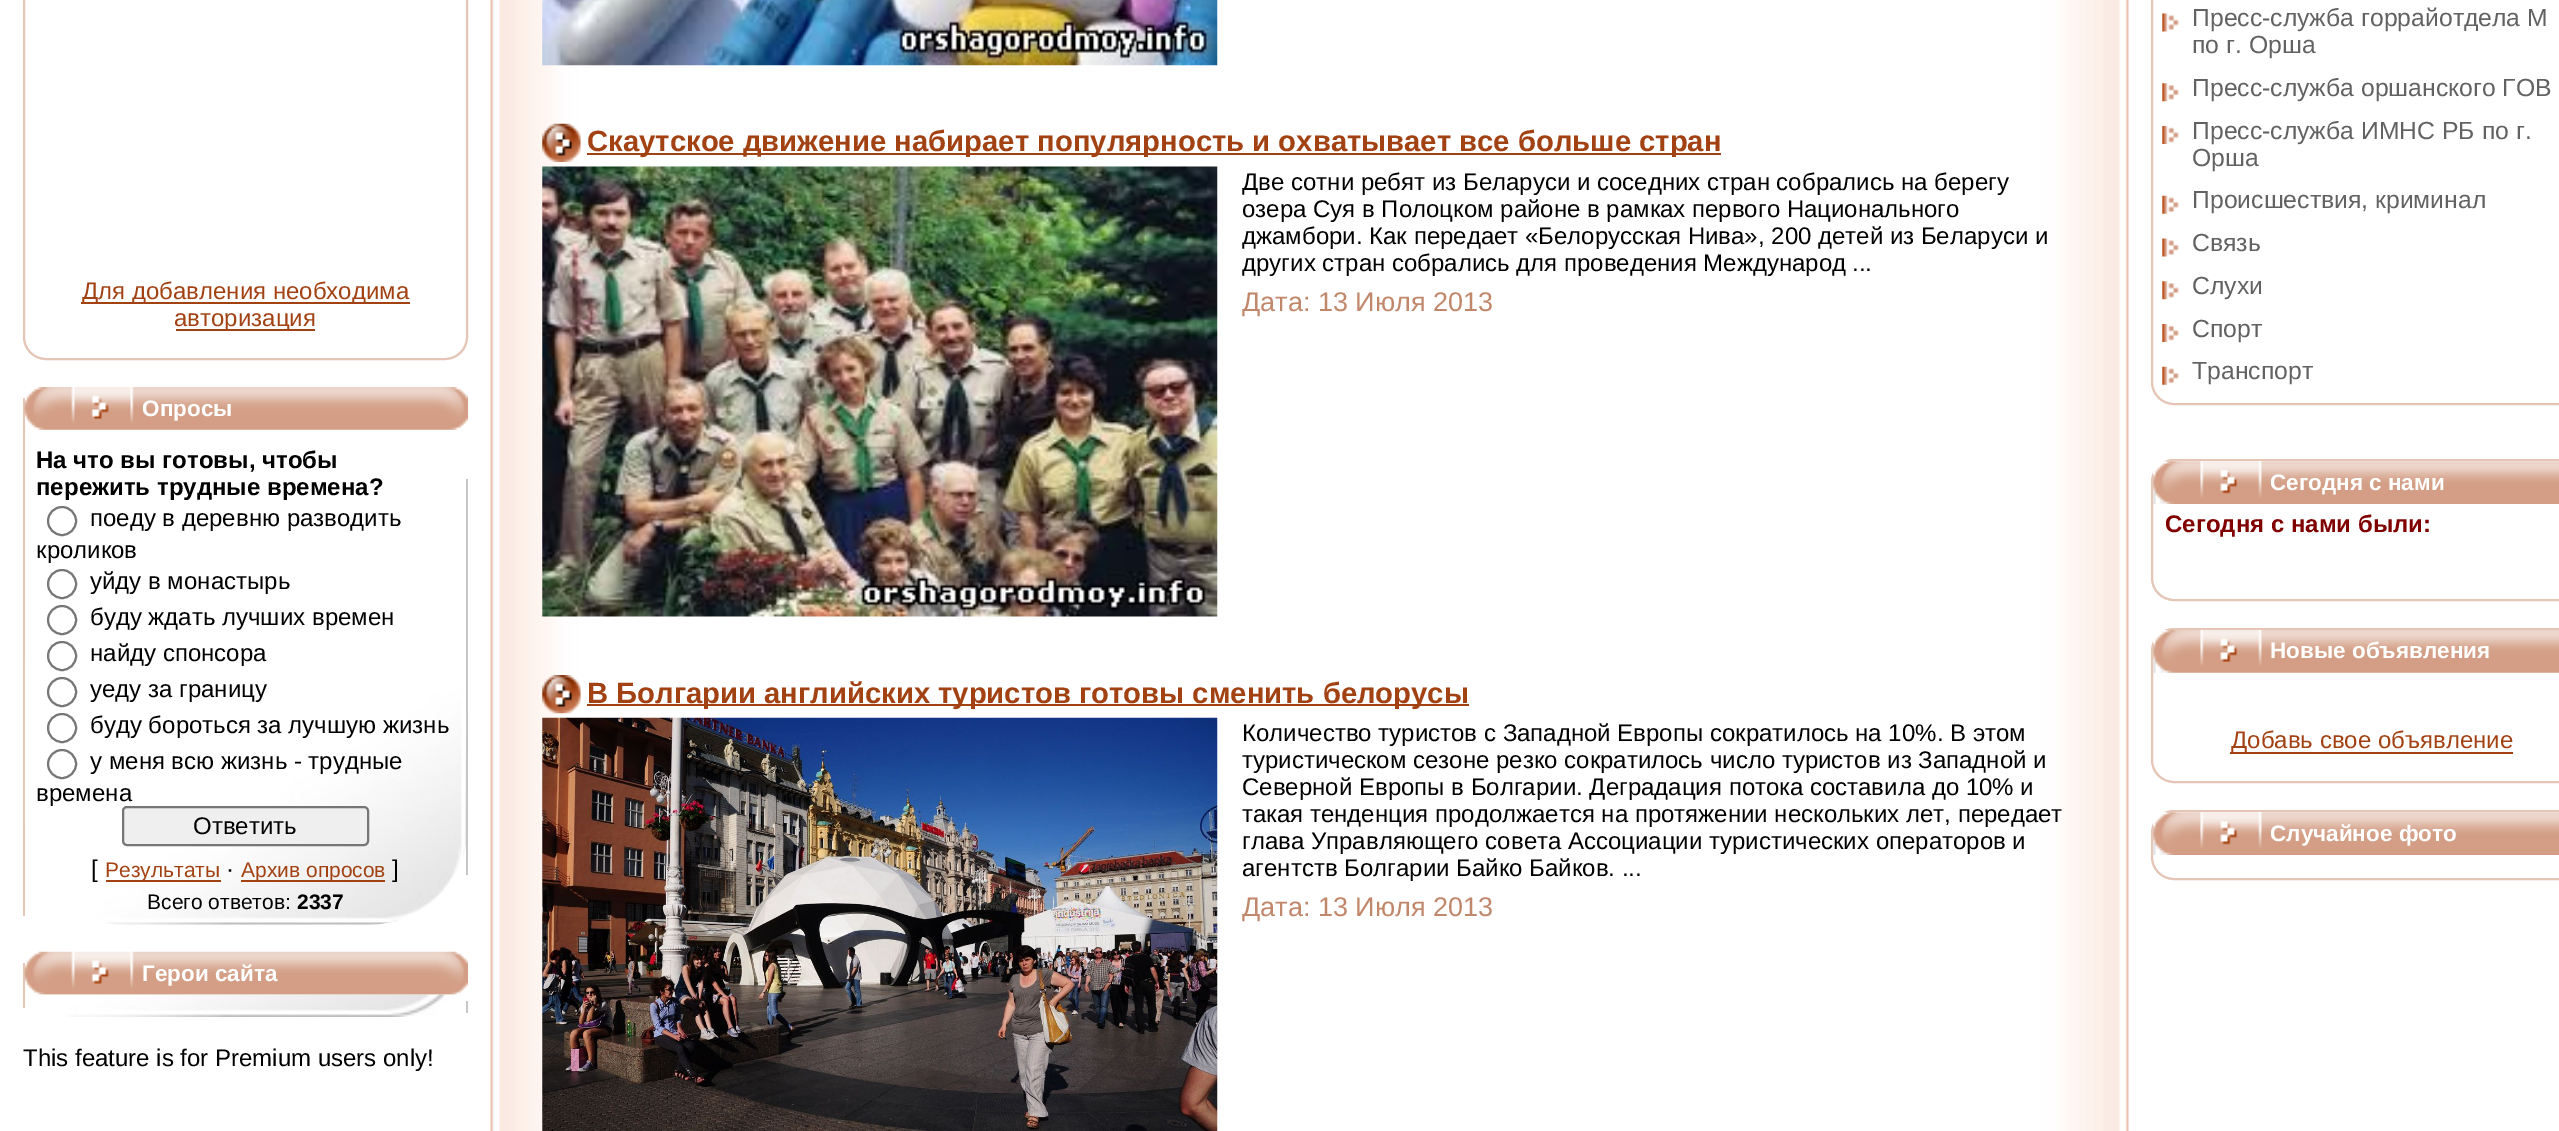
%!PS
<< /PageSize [2559 1131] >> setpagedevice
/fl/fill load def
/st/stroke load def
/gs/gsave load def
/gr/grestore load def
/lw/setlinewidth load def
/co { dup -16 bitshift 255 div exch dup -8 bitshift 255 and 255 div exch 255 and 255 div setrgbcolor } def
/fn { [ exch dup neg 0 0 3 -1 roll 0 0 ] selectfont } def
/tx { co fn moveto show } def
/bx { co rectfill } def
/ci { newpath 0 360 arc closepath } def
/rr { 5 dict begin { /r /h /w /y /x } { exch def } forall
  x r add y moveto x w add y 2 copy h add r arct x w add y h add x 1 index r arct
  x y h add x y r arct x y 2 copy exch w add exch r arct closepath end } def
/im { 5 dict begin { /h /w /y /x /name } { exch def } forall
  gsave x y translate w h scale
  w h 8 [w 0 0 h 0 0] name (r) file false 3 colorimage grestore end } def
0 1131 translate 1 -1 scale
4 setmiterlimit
0 0 2559 1131 16#FFFFFF bx
16#E4C5B6 co
2 lw
24 -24 443 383 22 rr st
81 302 329 2 16#A24213 bx
176 329 139 2 16#A24213 bx
23 398 2 518 16#E4C5B6 bx
(media/1.raw) 24 387 444 43 im
(media/2.raw) 24 657 442 268 im
466 479 2 396 16#C6C6C6 bx
16#767676 co
62 521 14 ci st
62 584 14 ci st
62 620 14 ci st
62 656 14 ci st
62 692 14 ci st
62 728 14 ci st
62 764 14 ci st
16#EFEFEF co
123 807 245 38 4 rr gs fl gr
16#767676 co
st
106 880 115 2 16#A24213 bx
241 880 144 2 16#A24213 bx
23 963 2 45 16#E4C5B6 bx
(media/3.raw) 24 951 444 44 im
(media/4.raw) 24 994 433 23 im
466 1001 2 12 16#C6C6C6 bx
(media/5.raw) 490 0 1639 1131 im
(media/6.raw) 542 0 676 66 im
(media/7.raw) 542 123 39 39 im
587 153 1134 2 16#A24213 bx
(media/8.raw) 542 166 676 451 im
(media/9.raw) 542 675 39 39 im
587 704 882 2 16#A24213 bx
(media/10.raw) 542 717 676 414 im
16#E4C5B6 co
2152 -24 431 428 22 rr st
(media/11.raw) 2162 13 17 19 im
(media/12.raw) 2162 83 17 19 im
(media/13.raw) 2162 126 17 18 im
(media/14.raw) 2162 195 17 19 im
(media/11.raw) 2162 238 17 19 im
(media/15.raw) 2162 281 17 19 im
(media/13.raw) 2162 324 17 18 im
(media/14.raw) 2162 366 17 19 im
2152 460 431 140 22 rr st
(media/16.raw) 2153 461 406 43 im
2152 629 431 153 22 rr st
(media/17.raw) 2153 630 406 43 im
2230 752 283 2 16#A24213 bx
16#E4C5B6 co
2152 811 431 68 22 rr st
(media/18.raw) 2153 812 406 43 im
(Для добавления необходима) 82 299 /LiberationSans-Regular 24 16#A24213 tx
(авторизация) 174 326 /LiberationSans-Regular 24 16#A24213 tx
(Опросы) 142 416 /LiberationSans-Bold 22.5 16#FFFFFF tx
(На что вы готовы, чтобы) 36 468 /LiberationSans-Bold 24 16#000000 tx
(пережить трудные времена?) 36 495 /LiberationSans-Bold 24 16#000000 tx
(поеду в деревню разводить) 90 526 /LiberationSans-Regular 24 16#000000 tx
(кроликов) 36 558 /LiberationSans-Regular 24 16#000000 tx
(уйду в монастырь) 90 589 /LiberationSans-Regular 24 16#000000 tx
(буду ждать лучших времен) 90 625 /LiberationSans-Regular 24 16#000000 tx
(найду спонсора) 90 661 /LiberationSans-Regular 24 16#000000 tx
(уеду за границу) 90 697 /LiberationSans-Regular 24 16#000000 tx
(буду бороться за лучшую жизнь) 90 733 /LiberationSans-Regular 24 16#000000 tx
(у меня всю жизнь - трудные) 90 769 /LiberationSans-Regular 24 16#000000 tx
(времена) 36 801 /LiberationSans-Regular 24 16#000000 tx
(Ответить) 193 834 /LiberationSans-Regular 24 16#000000 tx
([) 91 877 /LiberationSans-Regular 24 16#000000 tx
(Результаты) 105 877 /LiberationSans-Regular 21 16#A24213 tx
(·) 226 877 /LiberationSans-Regular 24 16#000000 tx
(Архив опросов) 241 877 /LiberationSans-Regular 21 16#A24213 tx
(]) 392 877 /LiberationSans-Regular 24 16#000000 tx
(Всего ответов:) 147 909 /LiberationSans-Regular 21 16#000000 tx
(2337) 297 909 /LiberationSans-Bold 21 16#000000 tx
(Герои сайта) 142 981 /LiberationSans-Bold 22.5 16#FFFFFF tx
(This feature is for Premium users only!) 23 1066 /LiberationSans-Regular 24 16#000000 tx
(Скаутское движение набирает популярность и охватывает все больше стран) 587 151 /LiberationSans-Bold 29.25 16#A24213 tx
(Две сотни ребят из Беларуси и соседних стран собрались на берегу) 1242 190 /LiberationSans-Regular 24 16#000000 tx
(озера Суя в Полоцком районе в рамках первого Национального) 1242 217 /LiberationSans-Regular 24 16#000000 tx
(джамбори. Как передает «Белорусская Нива», 200 детей из Беларуси и) 1242 244 /LiberationSans-Regular 24 16#000000 tx
(других стран собрались для проведения Международ) 1242 271 /LiberationSans-Regular 24 16#000000 tx
(...) 1852 271 /LiberationSans-Regular 24 16#000000 tx
(Дата: 13 Июля 2013) 1242 311 /LiberationSans-Regular 27 16#C1876B tx
(В Болгарии английских туристов готовы сменить белорусы) 587 703 /LiberationSans-Bold 29.25 16#A24213 tx
(Количество туристов с Западной Европы сократилось на 10%. В этом) 1242 741 /LiberationSans-Regular 24 16#000000 tx
(туристическом сезоне резко сократилось число туристов из Западной и) 1242 768 /LiberationSans-Regular 24 16#000000 tx
(Северной Европы в Болгарии. Деградация потока составила до 10% и) 1242 795 /LiberationSans-Regular 24 16#000000 tx
(такая тенденция продолжается на протяжении нескольких лет, передает) 1242 822 /LiberationSans-Regular 24 16#000000 tx
(глава Управляющего совета Ассоциации туристических операторов и) 1242 849 /LiberationSans-Regular 24 16#000000 tx
(агентств Болгарии Байко Байков. ...) 1242 876 /LiberationSans-Regular 24 16#000000 tx
(Дата: 13 Июля 2013) 1242 916 /LiberationSans-Regular 27 16#C1876B tx
(Пресс-служба горрайотдела М) 2192 26 /LiberationSans-Regular 24.75 16#626262 tx
(по г. Орша) 2192 53 /LiberationSans-Regular 24.75 16#626262 tx
(Пресс-служба оршанского ГОВ) 2192 96 /LiberationSans-Regular 24.75 16#626262 tx
(Пресс-служба ИМНС РБ по г.) 2192 139 /LiberationSans-Regular 24.75 16#626262 tx
(Орша) 2192 166 /LiberationSans-Regular 24.75 16#626262 tx
(Проиcшествия, криминал) 2192 208 /LiberationSans-Regular 24.75 16#626262 tx
(Связь) 2192 251 /LiberationSans-Regular 24.75 16#626262 tx
(Слухи) 2192 294 /LiberationSans-Regular 24.75 16#626262 tx
(Спорт) 2192 337 /LiberationSans-Regular 24.75 16#626262 tx
(Транспорт) 2192 379 /LiberationSans-Regular 24.75 16#626262 tx
(Сегодня с нами) 2270 490 /LiberationSans-Bold 22.5 16#FFFFFF tx
(Сегодня с нами были:) 2165 532 /LiberationSans-Bold 24 16#800000 tx
(Новые объявления) 2270 658 /LiberationSans-Bold 22.5 16#FFFFFF tx
(Добавь свое объявление) 2231 748 /LiberationSans-Regular 24 16#A24213 tx
(Случайное фото) 2270 841 /LiberationSans-Bold 22.5 16#FFFFFF tx
showpage
